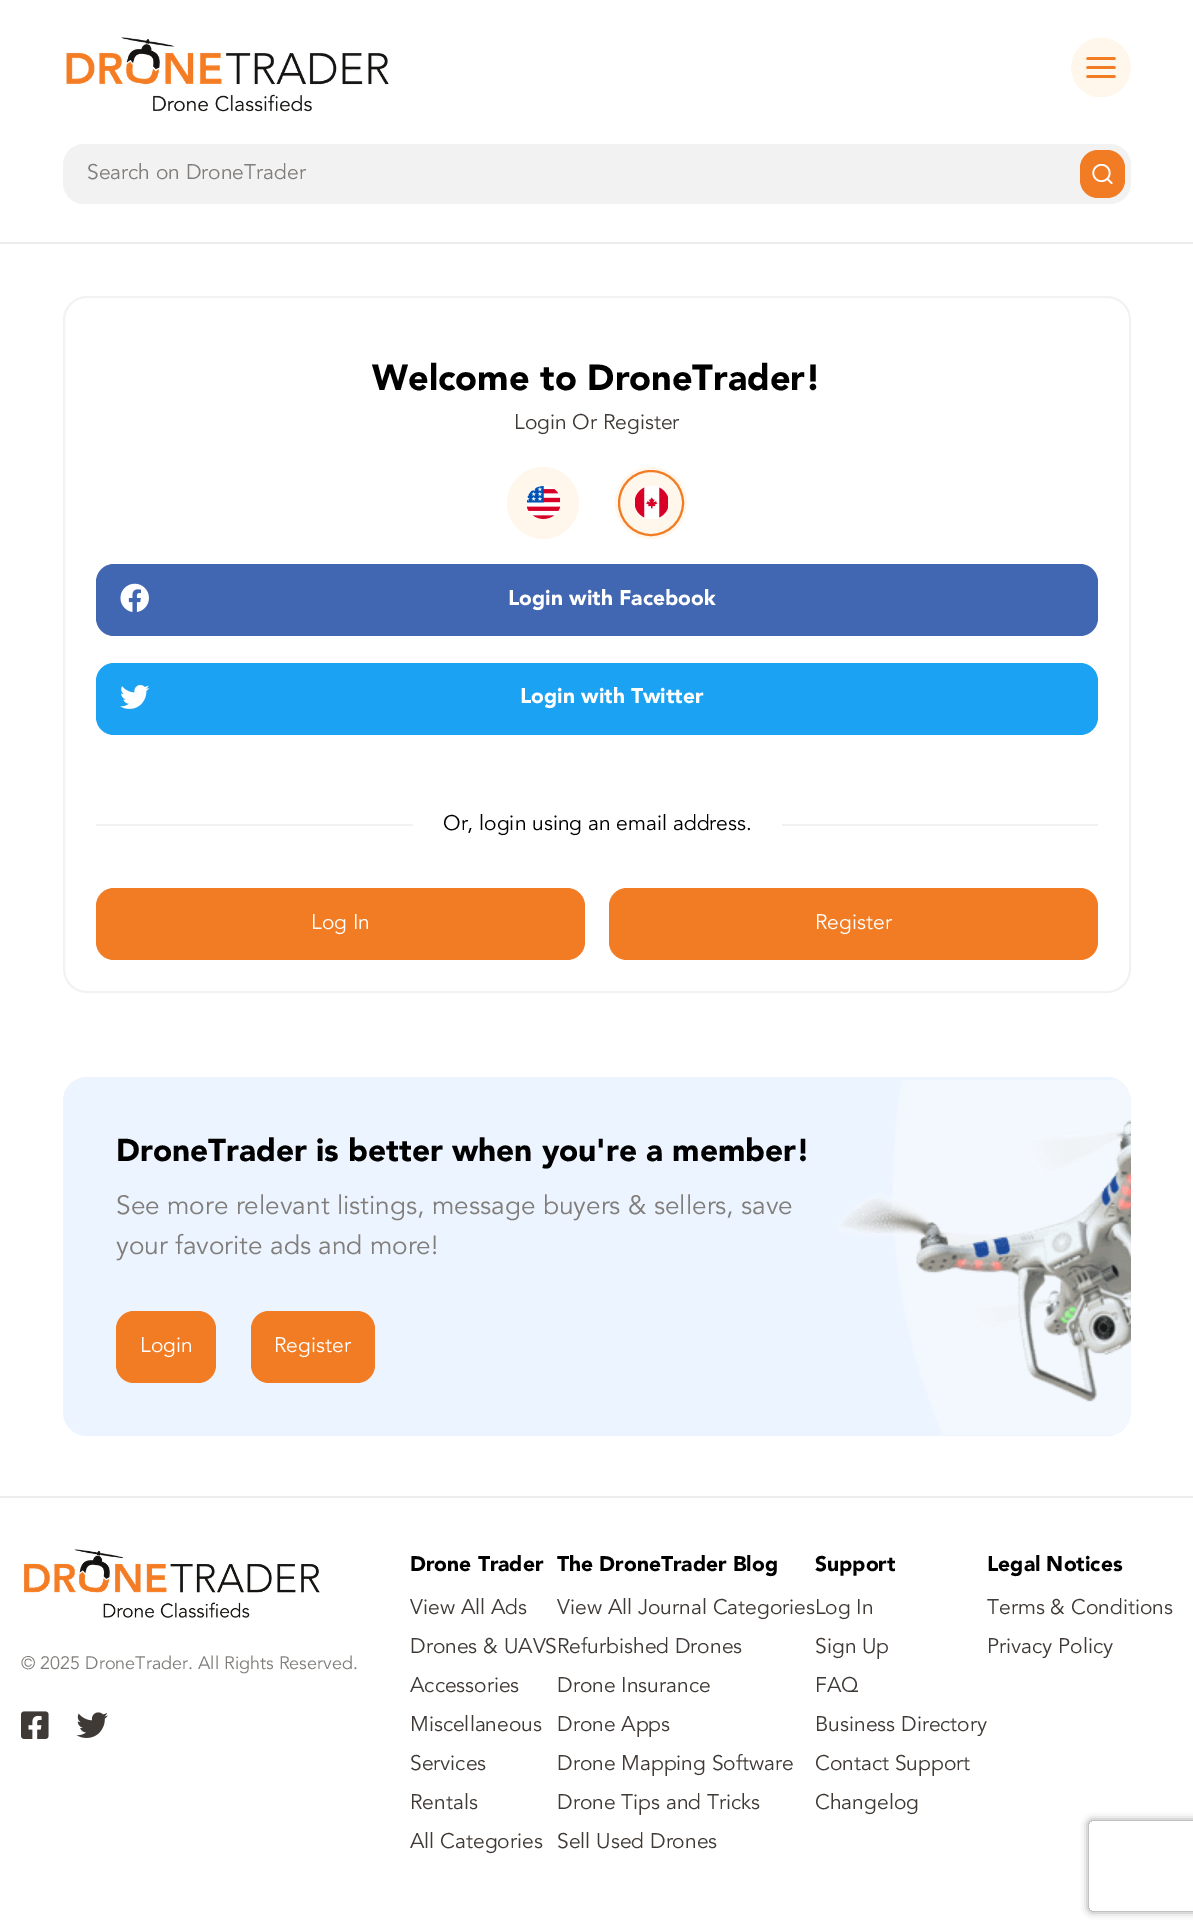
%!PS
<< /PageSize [1193 1932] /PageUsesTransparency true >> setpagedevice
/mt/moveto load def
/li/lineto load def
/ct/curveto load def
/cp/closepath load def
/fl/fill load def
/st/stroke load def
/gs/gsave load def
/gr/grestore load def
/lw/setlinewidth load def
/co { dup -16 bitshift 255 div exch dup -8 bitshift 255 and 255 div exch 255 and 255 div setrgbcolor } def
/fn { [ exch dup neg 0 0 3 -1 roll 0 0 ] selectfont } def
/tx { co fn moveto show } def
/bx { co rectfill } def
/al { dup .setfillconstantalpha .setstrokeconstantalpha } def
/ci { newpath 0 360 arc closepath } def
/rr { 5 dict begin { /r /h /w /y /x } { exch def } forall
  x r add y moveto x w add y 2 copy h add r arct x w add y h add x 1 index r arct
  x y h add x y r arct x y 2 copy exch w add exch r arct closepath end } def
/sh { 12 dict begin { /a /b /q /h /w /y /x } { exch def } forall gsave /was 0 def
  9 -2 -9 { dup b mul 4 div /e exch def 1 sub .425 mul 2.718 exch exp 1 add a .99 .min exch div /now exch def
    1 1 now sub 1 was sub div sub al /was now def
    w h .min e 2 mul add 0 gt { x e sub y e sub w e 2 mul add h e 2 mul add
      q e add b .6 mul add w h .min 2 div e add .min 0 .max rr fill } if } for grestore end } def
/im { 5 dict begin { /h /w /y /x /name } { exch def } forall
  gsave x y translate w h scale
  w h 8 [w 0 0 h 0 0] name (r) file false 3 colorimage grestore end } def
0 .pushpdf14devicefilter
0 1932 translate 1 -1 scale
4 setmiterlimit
0 0 1193 1932 16#FFFFFF bx
0 242 1193 2 16#EDEDED bx
(media/1.raw) 66 37 323 76 im
(media/2.raw) 1071 38 60 59 im
16#F2F2F2 co
63 144 1068 60 21 rr fl
16#F27C24 co
1080 150 45 48 18 rr fl
(media/3.raw) 1092 164 21 21 im
16#F2F2F2 co
2 lw
64 297 1066 695 23 rr st
16#FFF7EC co
543 503 36 ci fl
(media/4.raw) 527 486 33 33 im
651 503 36 ci fl
(media/5.raw) 635 486 33 33 im
16#F27C24 co
651 503 32 ci st
16#4267B2 co
96 564 1002 72 18 rr fl
(media/6.raw) 120 583 29 29 im
16#1CA2F3 co
96 663 1002 72 18 rr fl
(media/7.raw) 120 685 30 24 im
96 824 317 2 16#F2F2F2 bx
782 824 316 2 16#F2F2F2 bx
16#F27C24 co
96 888 489 72 18 rr fl
609 888 489 72 18 rr fl
16#ECF4FF co
63 1077 1068 359 24 rr fl
16#F27C24 co
116 1311 100 72 18 rr fl
251 1311 124 72 18 rr fl
(media/8.raw) 838 1080 293 355 im
0 1496 1193 2 16#EDEDED bx
(media/9.raw) 24 1549 296 69 im
(media/10.raw) 21 1711 28 28 im
(media/11.raw) 76 1712 32 26 im
gs
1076 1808 mt 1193 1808 li 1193 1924 li 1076 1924 li cp 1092 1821 mt 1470 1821 li 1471.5 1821 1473 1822.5 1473 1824 ct 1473 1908 li 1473 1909.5 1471.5 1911 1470 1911 ct 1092 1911 li 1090.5 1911 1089 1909.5 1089 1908 ct 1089 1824 li 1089 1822.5 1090.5 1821 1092 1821 ct cp eoclip newpath
16#808080 co
1089 1821 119 90 3 4 1 sh
gr
(Search on DroneTrader) 87 179 /Avenir-Regular 21 16#807D7A tx
(Welcome to DroneTrader!) 372 390 /Avenir-Black 36 16#000000 tx
(Login Or Register) 514 429 /Avenir-Regular 21 16#403A36 tx
(Login with Facebook) 508 605 /Avenir-Black 21 16#FFFFFF tx
(Login with Twitter) 520 703 /Avenir-Black 21 16#FFFFFF tx
(Or, login using an email address.) 443 830 /Avenir-Regular 21 16#000000 tx
(Log In) 311 929 /Avenir-Regular 21 16#FFFFFF tx
(Register) 815 929 /Avenir-Regular 21 16#FFFFFF tx
(DroneTrader is better when you're a member!) 116 1161 /Avenir-Black 31.5 16#000000 tx
(See more relevant listings, message buyers & sellers, save) 116 1214 /Avenir-Regular 26.25 16#807D7A tx
(your favorite ads and more!) 116 1254 /Avenir-Regular 26.25 16#807D7A tx
(Login) 140 1352 /Avenir-Regular 21 16#FFFFFF tx
(Register) 274 1352 /Avenir-Regular 21 16#FFFFFF tx
(Drone Trader) 410 1571 /Avenir-Black 21 16#000000 tx
(View All Ads) 410 1614 /Avenir-Regular 21 16#403A36 tx
(Drones & UAVSRefurbished Drones) 410 1653 /Avenir-Regular 21 16#403A36 tx
(Accessories) 410 1692 /Avenir-Regular 21 16#403A36 tx
(Miscellaneous) 410 1731 /Avenir-Regular 21 16#403A36 tx
(Services) 410 1770 /Avenir-Regular 21 16#403A36 tx
(Rentals) 410 1809 /Avenir-Regular 21 16#403A36 tx
(All Categories) 410 1848 /Avenir-Regular 21 16#403A36 tx
(The DroneTrader Blog) 557 1571 /Avenir-Black 21 16#000000 tx
(View All Journal CategoriesLog In) 557 1614 /Avenir-Regular 21 16#403A36 tx
(Drone Insurance) 557 1692 /Avenir-Regular 21 16#403A36 tx
(Drone Apps) 557 1731 /Avenir-Regular 21 16#403A36 tx
(Drone Mapping Software) 557 1770 /Avenir-Regular 21 16#403A36 tx
(Drone Tips and Tricks) 557 1809 /Avenir-Regular 21 16#403A36 tx
(Sell Used Drones) 557 1848 /Avenir-Regular 21 16#403A36 tx
(Support) 815 1571 /Avenir-Black 21 16#000000 tx
(Sign Up) 815 1653 /Avenir-Regular 21 16#403A36 tx
(FAQ) 815 1692 /Avenir-Regular 21 16#403A36 tx
(Business Directory) 815 1731 /Avenir-Regular 21 16#403A36 tx
(Contact Support) 815 1770 /Avenir-Regular 21 16#403A36 tx
(Changelog) 815 1809 /Avenir-Regular 21 16#403A36 tx
(Legal Notices) 987 1571 /Avenir-Black 21 16#000000 tx
(Terms & Conditions) 987 1614 /Avenir-Regular 21 16#403A36 tx
(Privacy Policy) 987 1653 /Avenir-Regular 21 16#403A36 tx
(© 2025 DroneTrader. All Rights Reserved.) 21 1669 /Avenir-Regular 18 16#807D7A tx
.poppdf14devicefilter showpage
